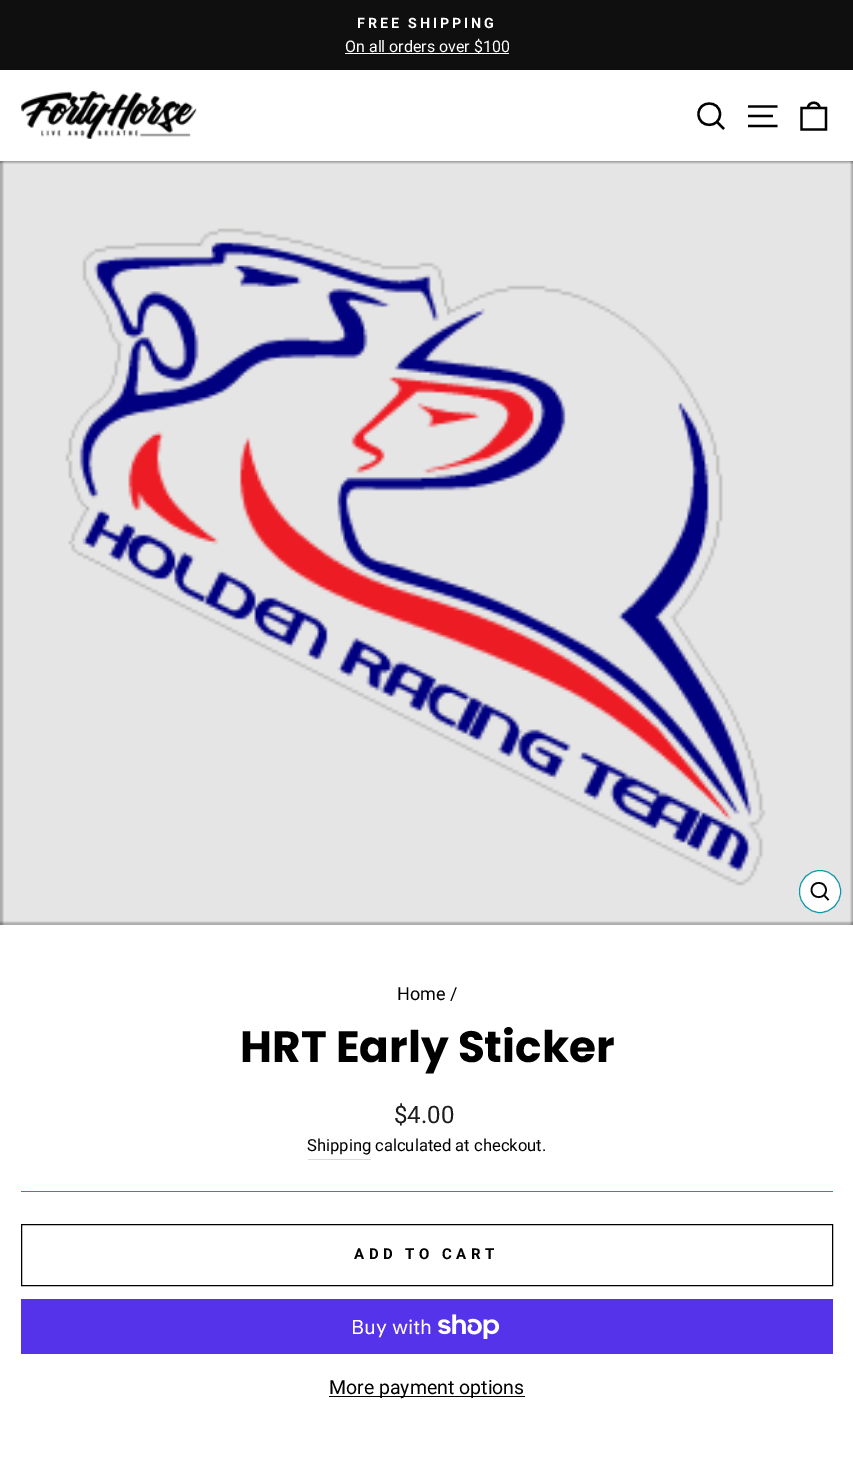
%!PS
<< /PageSize [853 1462] /PageUsesTransparency true >> setpagedevice
/mt/moveto load def
/li/lineto load def
/ct/curveto load def
/cp/closepath load def
/fl/fill load def
/st/stroke load def
/gs/gsave load def
/gr/grestore load def
/lw/setlinewidth load def
/co { dup -16 bitshift 255 div exch dup -8 bitshift 255 and 255 div exch 255 and 255 div setrgbcolor } def
/fn { [ exch dup neg 0 0 3 -1 roll 0 0 ] selectfont } def
/tx { co fn moveto show } def
/bx { co rectfill } def
/al { dup .setfillconstantalpha .setstrokeconstantalpha } def
/rr { 5 dict begin { /r /h /w /y /x } { exch def } forall
  x r add y moveto x w add y 2 copy h add r arct x w add y h add x 1 index r arct
  x y h add x y r arct x y 2 copy exch w add exch r arct closepath end } def
/sh { 12 dict begin { /a /b /q /h /w /y /x } { exch def } forall gsave /was 0 def
  9 -2 -9 { dup b mul 4 div /e exch def 1 sub .425 mul 2.718 exch exp 1 add a .99 .min exch div /now exch def
    1 1 now sub 1 was sub div sub al /was now def
    w h .min e 2 mul add 0 gt { x e sub y e sub w e 2 mul add h e 2 mul add
      q e add b .6 mul add w h .min 2 div e add .min 0 .max rr fill } if } for grestore end } def
/im { 5 dict begin { /h /w /y /x /name } { exch def } forall
  gsave x y translate w h scale
  w h 8 [w 0 0 h 0 0] name (r) file false 3 colorimage grestore end } def
0 .pushpdf14devicefilter
0 1462 translate 1 -1 scale
4 setmiterlimit
0 0 853 1462 16#FFFFFF bx
0 0 853 70 16#0F0F0F bx
345 53 164 1 16#FFFFFF bx
0 161 853 764 16#E5E5E5 bx
(media/2.raw) 0 161 853 764 im
16#000000 co
0 70 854 91 0 .5 .2 sh
0 70 853 91 16#FFFFFF bx
(media/1.raw) 21 91 176 48 im
16#000000 co
2.3 lw
720 114 mt 720 128.5 698.5 128.5 698.5 114 ct 698.5 100 720 100 720 114 ct cp 724 129 mt 717 122 li st
748 106.5 mt 777.5 106.5 li 748 116 mt 773 116 li 748 126 mt 777.5 126 li st
801.5 108 mt 826 108 li 826 129.5 li 801.5 129.5 li cp 808 108 mt 808 101 819.5 101 819.5 108 ct st
16#FFFFFF co
799.5 870.5 41 42 20.5 rr gs fl gr
16#1196AB co
1 lw
st
16#000000 co
1.6 lw
826 890 mt 826 899.5 811.5 899.5 811.5 890 ct 811.5 880.5 826 880.5 826 890 ct cp 828.5 900 mt 824 895 li st
308 1159 63 1 16#D9D9D9 bx
21 1191 812 1 16#1196AB bx
16#000000 co
1 lw
21.5 1224.5 811 61 rectstroke
21 1299 812 55 16#5433EB bx
(media/3.raw) 438 1314 62 25 im
329 1396 196 1 16#000000 bx
/Roboto-Bold 14.25 fn
16#FFFFFF co
357 28 mt 2.9 0 (FREE SHIPPING) ashow
(On all orders over $100) 345 52 /Roboto-Regular 16 16#FFFFFF tx
(Home /) 397 1000 /Roboto-Regular 18 16#000000 tx
(HRT Early Sticker) 240 1062 /Poppins-Bold 43.75 16#000000 tx
($4.00) 394 1123 /Roboto-Regular 24 16#1C1D1D tx
(Shipping) 307 1151 /Roboto-Regular 16.6 16#000000 tx
(calculated at checkout.) 375 1151 /Roboto-Regular 16.6 16#000000 tx
/Roboto-Bold 15 fn
354 1259 mt 4.5 0 (ADD TO CART) ashow
(Buy with) 351 1334 /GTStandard-Regular 20 16#FFFFFF tx
(More payment options) 329 1394 /Roboto-Regular 19.5 16#000000 tx
.poppdf14devicefilter showpage
